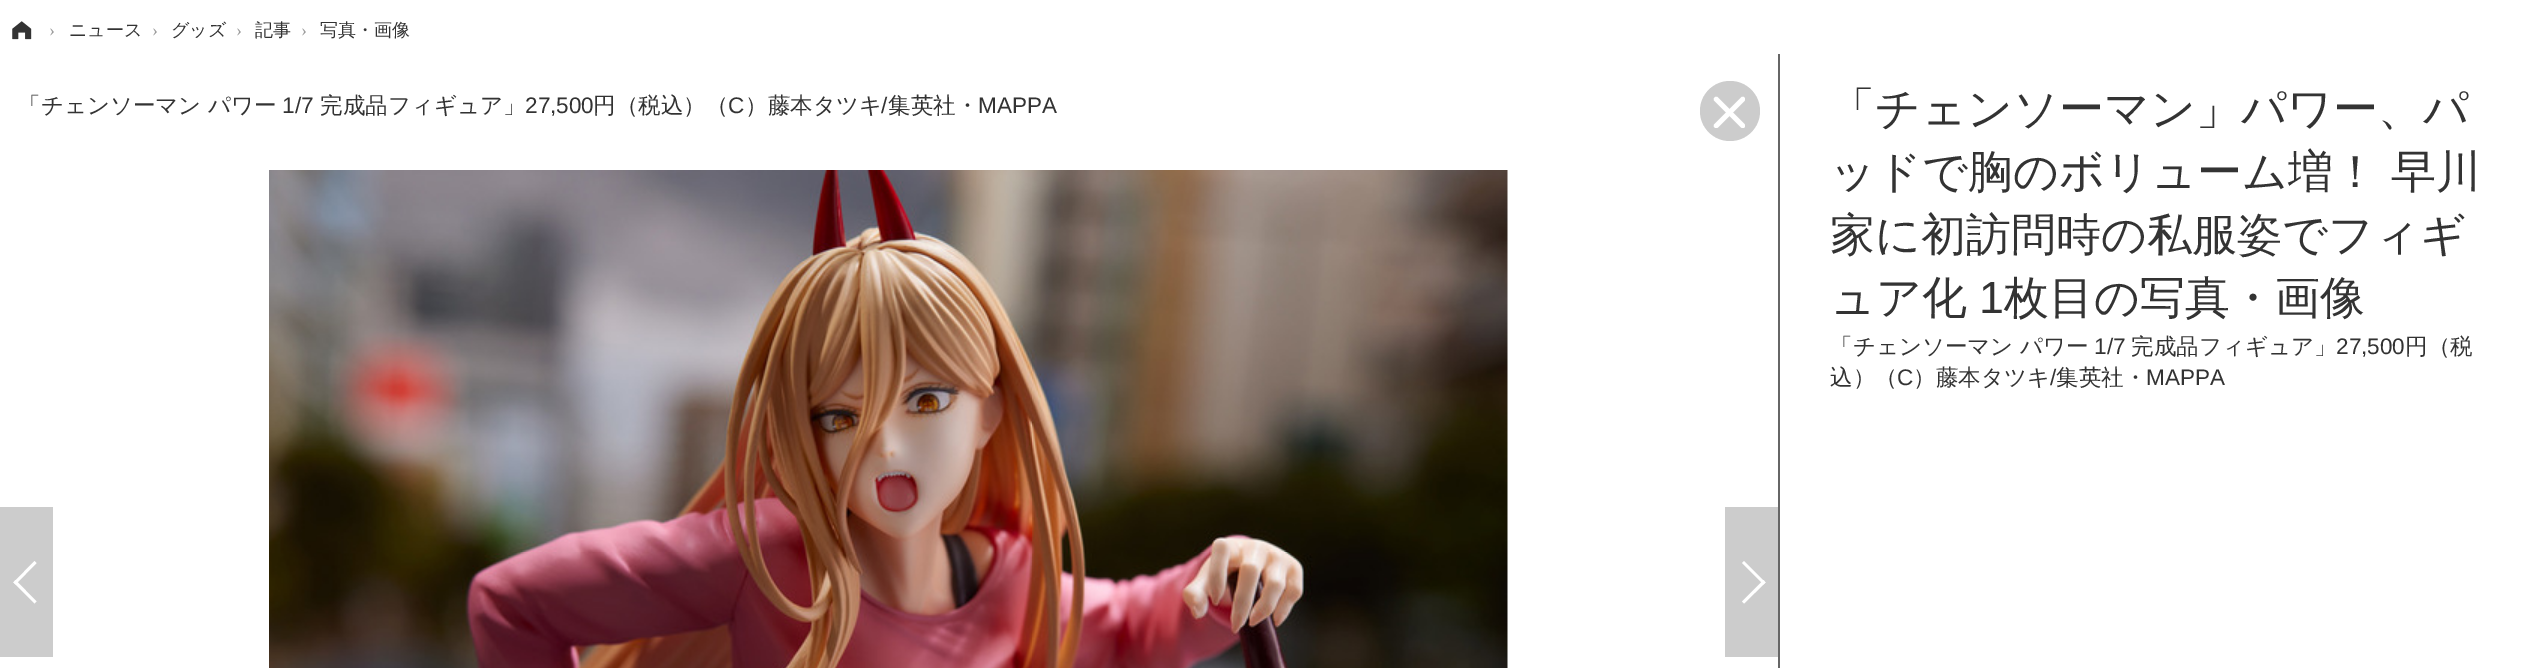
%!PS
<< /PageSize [2540 668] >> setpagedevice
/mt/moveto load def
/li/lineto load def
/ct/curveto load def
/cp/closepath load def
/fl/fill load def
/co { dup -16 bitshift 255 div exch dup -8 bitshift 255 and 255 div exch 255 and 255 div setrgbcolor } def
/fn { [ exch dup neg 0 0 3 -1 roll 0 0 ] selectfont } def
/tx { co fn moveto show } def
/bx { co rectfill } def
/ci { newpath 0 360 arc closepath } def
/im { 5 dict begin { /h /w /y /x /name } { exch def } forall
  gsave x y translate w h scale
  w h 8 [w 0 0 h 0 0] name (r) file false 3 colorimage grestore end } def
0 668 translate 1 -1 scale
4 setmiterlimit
0 0 2540 668 16#FFFFFF bx
(media/1.raw) 12 21 20 19 im
1778 54 2 614 16#666666 bx
16#CCCCCC co
1730 111 30 ci fl
16#FFFFFF co
1714.5 124 mt 1741 97.5 li 1742 96.5 1743.5 96.5 1744.5 97.5 ct 1745 98.5 1745 100 1744.5 101 ct 1718 127.5 li 1717 128 1715.5 128 1714.5 127.5 ct 1713.5 126.5 1713.5 125 1714.5 124 ct cp fl
1718 97.5 mt 1744.5 124 li 1745 125 1745 126.5 1744.5 127.5 ct 1743.5 128 1742 128 1741 127.5 ct 1714.5 101 li 1713.5 100 1713.5 98.5 1714.5 97.5 ct 1715.5 96.5 1717 96.5 1718 97.5 ct cp fl
(media/2.raw) 269 170 1239 498 im
0 507 53 150 16#CCCCCC bx
16#FFFFFF co
34.5 603.5 mt 13.5 582.5 li 15.5 580 li 36.5 601.5 li cp fl
15.5 584.5 mt 13.5 582.5 li 34.5 561 li 36.5 563 li cp fl
1725 507 53 150 16#CCCCCC bx
16#FFFFFF co
1744 561 mt 1765.5 582.5 li 1763.5 584.5 li 1742 563 li cp fl
1763.5 580 mt 1765.5 582.5 li 1744 603.5 li 1742 601.5 li cp fl
(›) 49 36 /LiberationSerif-Regular 18 16#999999 tx
(ニュース) 69 36 /WenQuanYiZenHei-Medium 18 16#333333 tx
(›) 152 36 /LiberationSerif-Regular 18 16#999999 tx
(グッズ) 171 36 /WenQuanYiZenHei-Medium 18 16#333333 tx
(›) 236 36 /LiberationSerif-Regular 18 16#999999 tx
(記事) 255 36 /WenQuanYiZenHei-Medium 18 16#333333 tx
(›) 301 36 /LiberationSerif-Regular 18 16#999999 tx
(写真・画像) 320 36 /WenQuanYiZenHei-Medium 18 16#333333 tx
(「チェンソーマン パワー) 18 113 /WenQuanYiZenHei-Medium 22.5 16#333333 tx
(1/7) 282 113 /LiberationSans-Regular 22.5 16#333333 tx
(完成品フィギュア」) 320 113 /WenQuanYiZenHei-Medium 22.5 16#333333 tx
(27,500) 525 113 /LiberationSans-Regular 22.5 16#333333 tx
(円（税込）（) 593 113 /WenQuanYiZenHei-Medium 22.5 16#333333 tx
(C) 728 113 /LiberationSans-Regular 22.5 16#333333 tx
(）藤本タツキ) 745 113 /WenQuanYiZenHei-Medium 22.5 16#333333 tx
(/) 881 113 /LiberationSans-Regular 22.5 16#333333 tx
(集英社・) 888 113 /WenQuanYiZenHei-Medium 22.5 16#333333 tx
(MAPPA) 978 113 /LiberationSans-Regular 22.5 16#333333 tx
(「チェンソーマン」パワー、パ) 1830 124 /WenQuanYiZenHei-Medium 45 16#333333 tx
1830 187 mt -1 0 32 (ッドで胸のボリューム増！ 早川) widthshow
(家に初訪問時の私服姿でフィギ) 1830 250 /WenQuanYiZenHei-Medium 45 16#333333 tx
(ュア化) 1830 313 /WenQuanYiZenHei-Medium 45 16#333333 tx
(1) 1979 313 /LiberationSans-Regular 45 16#333333 tx
(枚目の写真・画像) 2004 313 /WenQuanYiZenHei-Medium 45 16#333333 tx
(「チェンソーマン パワー) 1830 354 /WenQuanYiZenHei-Medium 22.5 16#333333 tx
(1/7) 2094 354 /LiberationSans-Regular 22.5 16#333333 tx
(完成品フィギュア」) 2131 354 /WenQuanYiZenHei-Medium 22.5 16#333333 tx
(27,500) 2336 354 /LiberationSans-Regular 22.5 16#333333 tx
(円（税) 2405 354 /WenQuanYiZenHei-Medium 22.5 16#333333 tx
(込）（) 1830 385 /WenQuanYiZenHei-Medium 22.5 16#333333 tx
(C) 1897 385 /LiberationSans-Regular 22.5 16#333333 tx
(）藤本タツキ) 1913 385 /WenQuanYiZenHei-Medium 22.5 16#333333 tx
(/) 2050 385 /LiberationSans-Regular 22.5 16#333333 tx
(集英社・) 2056 385 /WenQuanYiZenHei-Medium 22.5 16#333333 tx
(MAPPA) 2146 385 /LiberationSans-Regular 22.5 16#333333 tx
showpage
